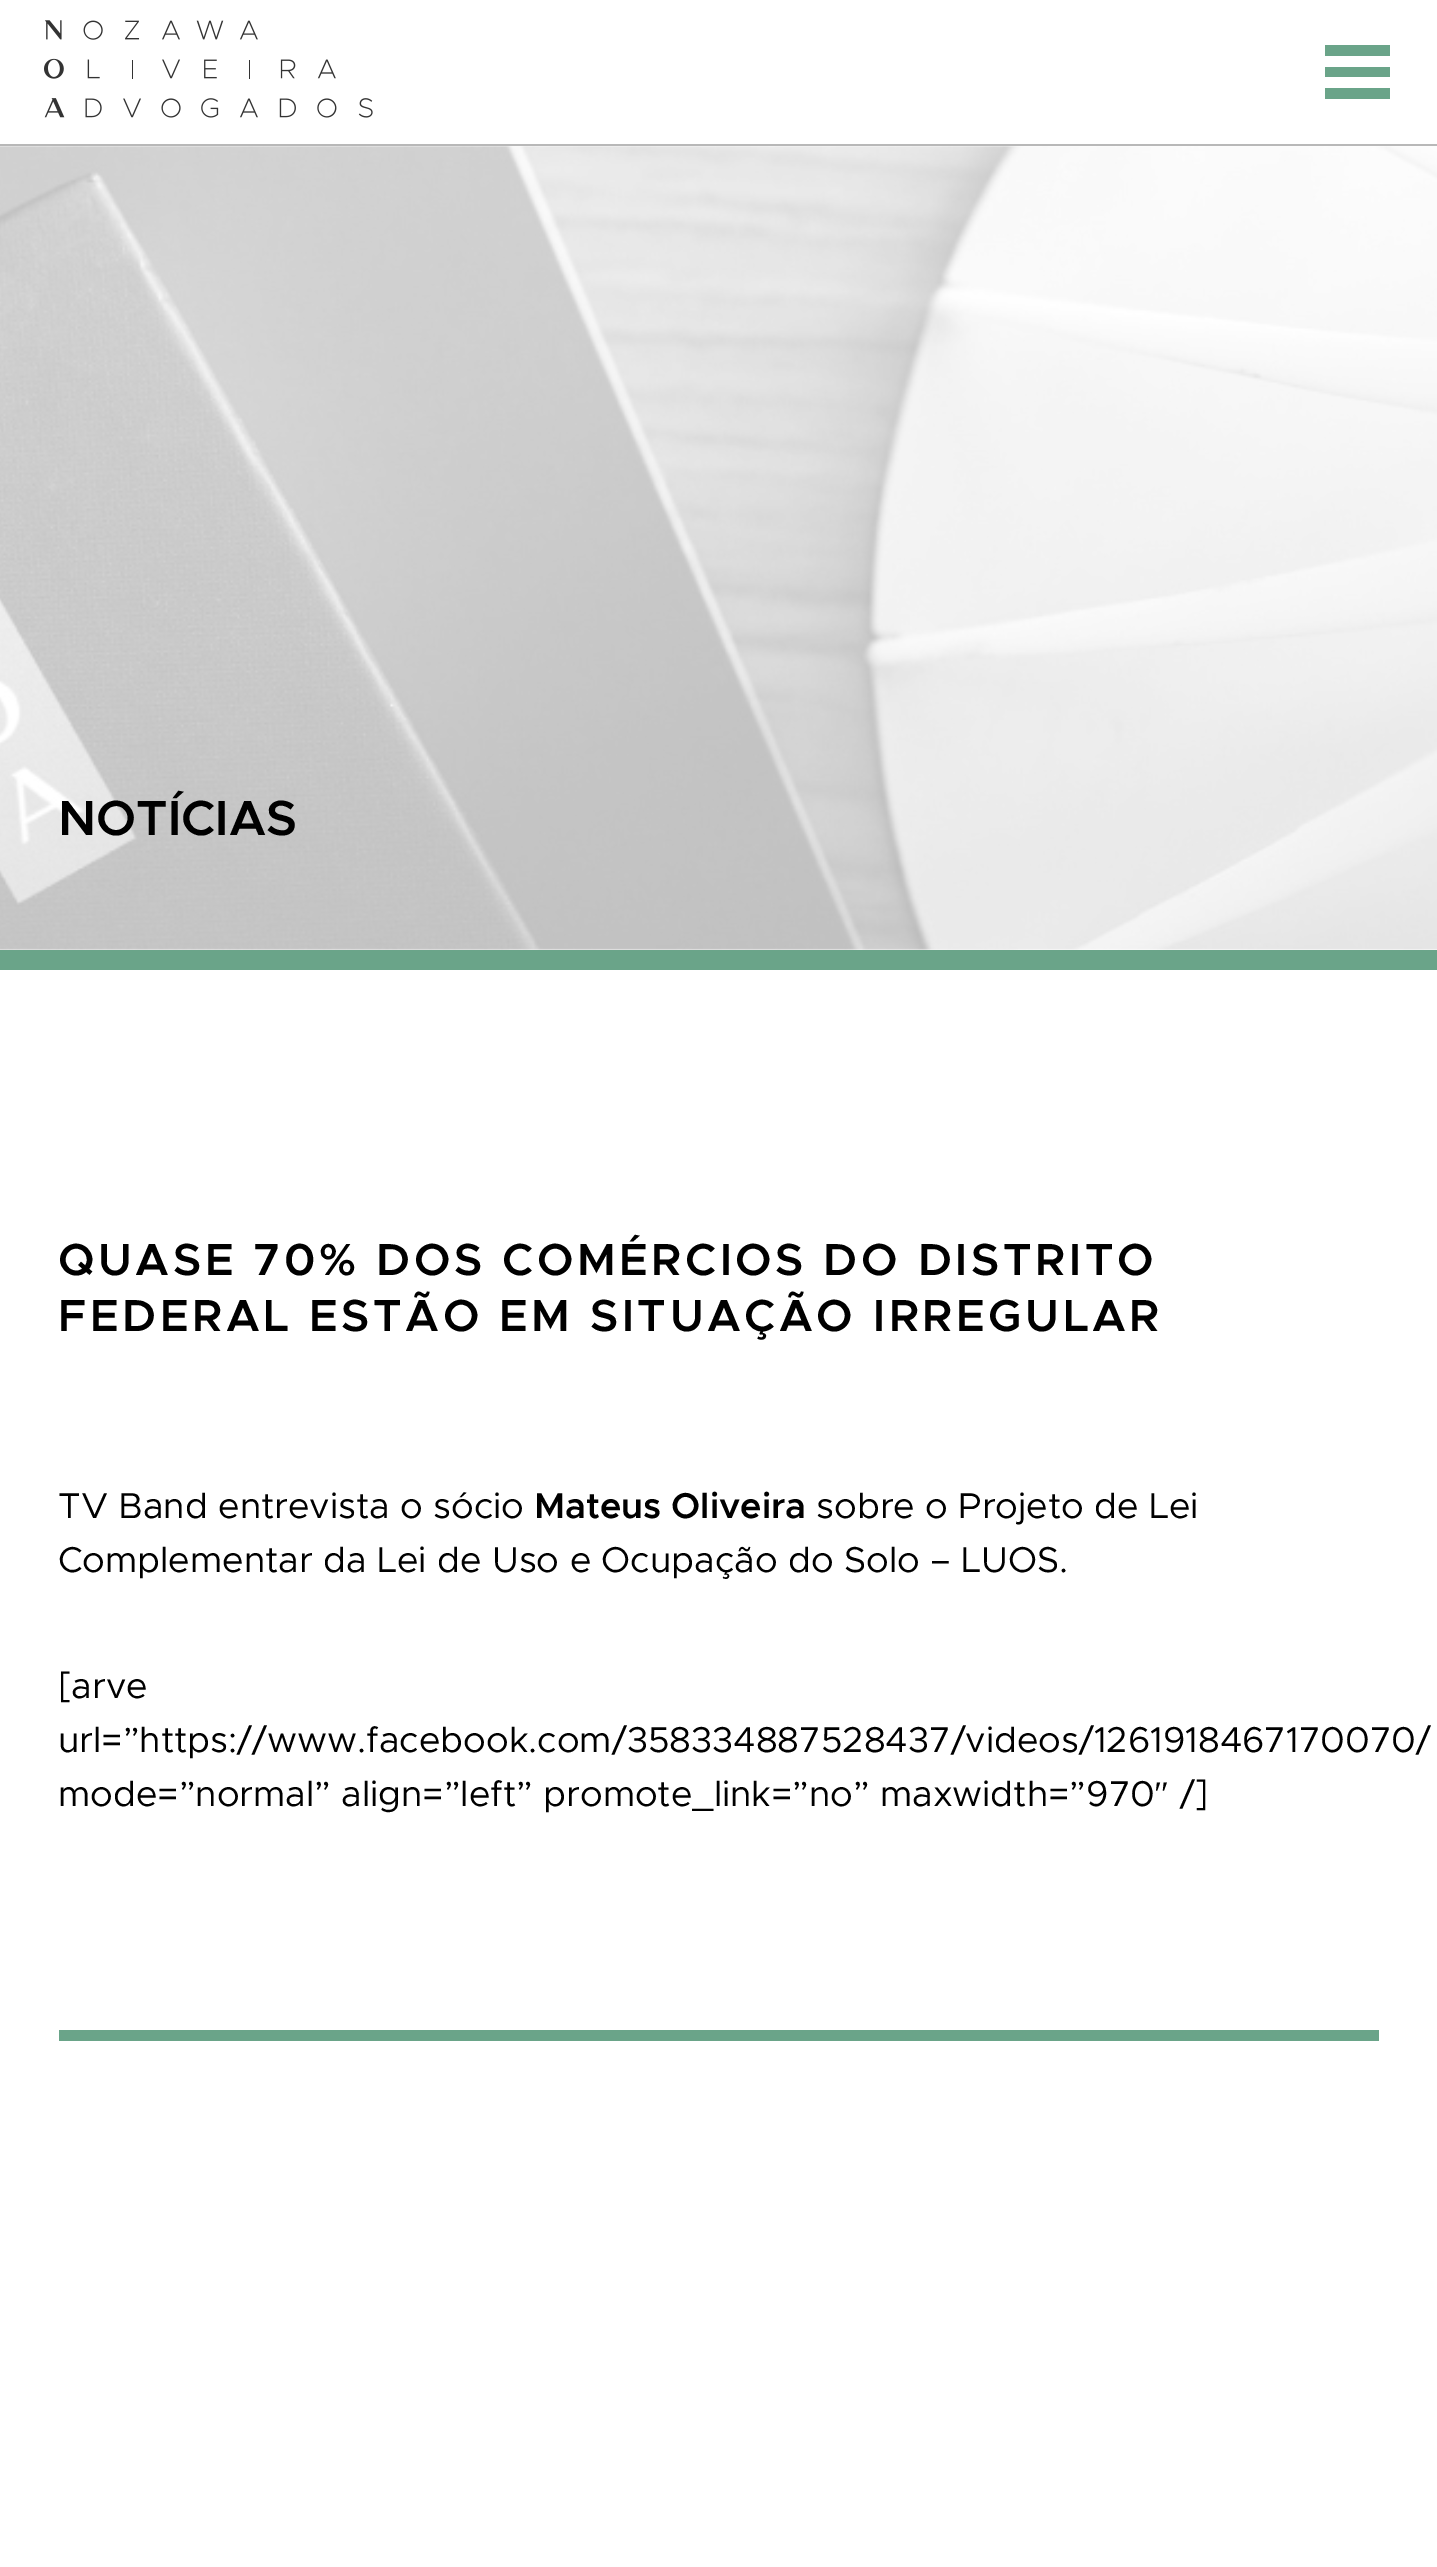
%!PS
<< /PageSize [1437 2567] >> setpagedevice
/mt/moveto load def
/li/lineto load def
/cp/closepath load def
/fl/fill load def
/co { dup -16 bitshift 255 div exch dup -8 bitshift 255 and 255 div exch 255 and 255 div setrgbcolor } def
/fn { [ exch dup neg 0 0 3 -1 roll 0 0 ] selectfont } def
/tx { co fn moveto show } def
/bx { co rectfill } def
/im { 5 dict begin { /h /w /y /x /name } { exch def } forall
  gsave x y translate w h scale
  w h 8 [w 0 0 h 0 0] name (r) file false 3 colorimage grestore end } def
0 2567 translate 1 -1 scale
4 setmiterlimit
0 0 1437 2567 16#FFFFFF bx
0 144 1437 2 16#B8B8B8 bx
(media/1.raw) 44 20 329 98 im
16#6AA489 co
1390 56 mt 1325 56 li 1325 45 li 1390 45 li cp 1390 67 mt 1325 67 li 1325 77 li 1390 77 li cp 1390 88 mt 1325 88 li 1325 99 li 1390 99 li cp fl
(media/2.raw) 0 146 1437 804 im
0 950 1437 20 16#6AA489 bx
59 2030 1320 11 16#6AA489 bx
(NOTÍCIAS) 58 835 /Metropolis-SemiBold 49.5 16#000000 tx
/Metropolis-SemiBold 45 fn
58 1275 mt 3.6 0 (QUASE 70% DOS COMÉRCIOS DO DISTRITO) ashow
58 1331 mt 3.6 0 (FEDERAL ESTÃO EM SITUAÇÃO IRREGULAR) ashow
(TV Band entrevista o sócio) 58 1518 /Metropolis-Regular 36 16#000000 tx
(Mateus Oliveira) 534 1518 /Metropolis-SemiBold 36 16#000000 tx
(sobre o Projeto de Lei) 816 1518 /Metropolis-Regular 36 16#000000 tx
(Complementar da Lei de Uso e Ocupação do Solo – LUOS.) 58 1572 /Metropolis-Regular 36 16#000000 tx
([arve) 58 1698 /Metropolis-Regular 36 16#000000 tx
(url=”https://www.facebook.com/358334887528437/videos/1261918467170070/) 58 1752 /Metropolis-Regular 36 16#000000 tx
(mode=”normal” align=”left” promote_link=”no” maxwidth=”970) 58 1806 /Metropolis-Regular 36 16#000000 tx
(″) 1154 1806 /LiberationSerif-Regular 36 16#000000 tx
(/]) 1180 1806 /Metropolis-Regular 36 16#000000 tx
showpage
